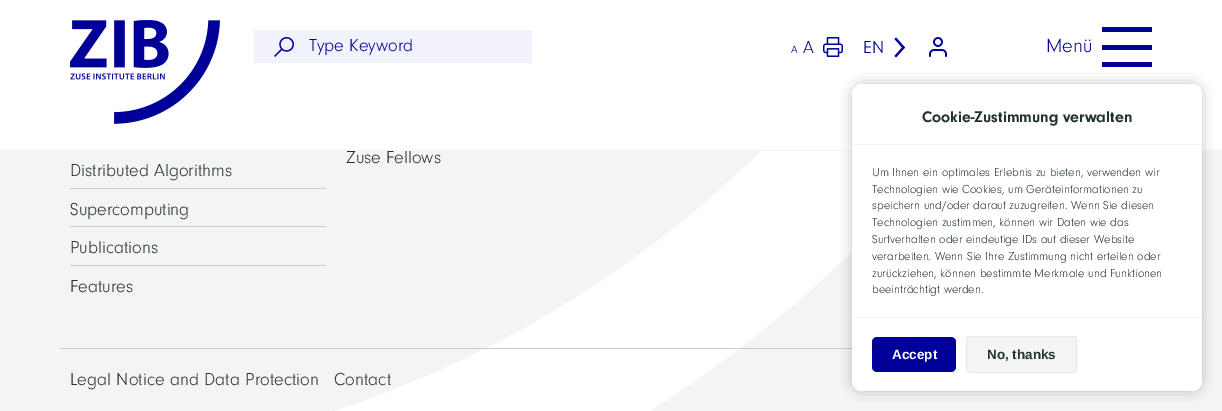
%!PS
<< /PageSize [1222 411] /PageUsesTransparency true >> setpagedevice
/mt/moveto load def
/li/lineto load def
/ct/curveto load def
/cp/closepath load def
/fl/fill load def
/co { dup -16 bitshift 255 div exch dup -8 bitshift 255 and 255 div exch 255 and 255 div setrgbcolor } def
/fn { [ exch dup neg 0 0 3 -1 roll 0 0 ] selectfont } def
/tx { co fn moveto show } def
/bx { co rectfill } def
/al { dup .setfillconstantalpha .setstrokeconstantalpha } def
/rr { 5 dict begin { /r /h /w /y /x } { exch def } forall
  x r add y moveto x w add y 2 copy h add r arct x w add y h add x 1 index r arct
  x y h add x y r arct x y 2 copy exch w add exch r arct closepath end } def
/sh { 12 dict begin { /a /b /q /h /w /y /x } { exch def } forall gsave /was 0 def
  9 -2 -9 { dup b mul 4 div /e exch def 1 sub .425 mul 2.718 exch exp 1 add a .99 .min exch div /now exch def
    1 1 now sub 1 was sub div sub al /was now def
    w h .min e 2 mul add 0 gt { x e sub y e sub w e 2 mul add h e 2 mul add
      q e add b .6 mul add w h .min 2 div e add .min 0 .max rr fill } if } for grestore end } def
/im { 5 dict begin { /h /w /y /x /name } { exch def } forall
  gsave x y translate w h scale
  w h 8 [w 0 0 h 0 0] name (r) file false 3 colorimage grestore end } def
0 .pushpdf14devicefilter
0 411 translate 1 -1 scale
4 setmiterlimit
0 0 1222 411 16#F4F4F4 bx
16#FFFFFF co
1087 -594 mt 1222 -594 li 1204 69 663 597 0 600 ct 0 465 li 588 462 1069 -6 1087 -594 ct cp fl
0 0 1222 150 16#FFFFFF bx
761 150 184 1 16#F4F4F4 bx
(media/1.raw) 70 20 150 104 im
254 30 278 33 16#F2F2FA bx
(media/2.raw) 274 37 20 20 im
(media/3.raw) 823 37 20 20 im
16#000099 co
896 37.5 mt 894.5 39 li 902 47.5 li 894.5 56 li 896 57.5 li 905 47.5 li cp fl
(media/4.raw) 929 37 18 20 im
1102 27 50 5 16#000099 bx
1102 45 50 5 16#000099 bx
1102 62 50 5 16#000099 bx
70 188 256 1 16#CCCCCC bx
70 226 256 1 16#CCCCCC bx
70 265 256 1 16#CCCCCC bx
60 348 792 1 16#CCCCCC bx
16#000000 co
857 89 340 297 5 7.5 .5 sh
16#FFFFFF co
852 84 350 307 10 rr fl
852 144 350 1 16#F2F2F2 bx
852 317 350 1 16#F2F2F2 bx
16#000099 co
872 337 84 35 5 rr fl
16#F4F4F4 co
966 336 111 37 5 rr fl
0.05 al
16#000000 co
966.5 336.5 110 36 rectstroke
1 al
(Type Keyword) 309 51 /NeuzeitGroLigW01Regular-Regular 18 16#000099 tx
(A) 791 53 /NeuzeitGroLigW01Regular-Regular 11 16#000099 tx
(A) 803 53 /NeuzeitGroLigW01Regular-Regular 18 16#000099 tx
(EN) 863 53 /NeuzeitGroLigW01Regular-Regular 18 16#000099 tx
(Menü) 1046 52 /NeuzeitGroLigW01Regular-Regular 20 16#000099 tx
(Zuse Fellows) 346 163 /NeuzeitGroLigW01Regular-Regular 18 16#233333 tx
(Distributed Algorithms) 70 176 /NeuzeitGroLigW01Regular-Regular 18 16#233333 tx
(Supercomputing) 70 215 /NeuzeitGroLigW01Regular-Regular 18 16#233333 tx
(Publications) 70 253 /NeuzeitGroLigW01Regular-Regular 18 16#233333 tx
(Features) 70 292 /NeuzeitGroLigW01Regular-Regular 18 16#233333 tx
(Legal Notice and Data Protection) 70 385 /NeuzeitGroLigW01Regular-Regular 18 16#233333 tx
(Contact) 334 385 /NeuzeitGroLigW01Regular-Regular 18 16#233333 tx
(Cookie-Zustimmung verwalten) 922 122 /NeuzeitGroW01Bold-Bold 16 16#233333 tx
(Um Ihnen ein optimales Erlebnis zu bieten, verwenden wir) 872 176 /NeuzeitGroLigW01Regular-Regular 12 16#233333 tx
(Technologien wie Cookies, um Geräteinformationen zu) 872 193 /NeuzeitGroLigW01Regular-Regular 12 16#233333 tx
(speichern und/oder darauf zuzugreifen. Wenn Sie diesen) 872 209 /NeuzeitGroLigW01Regular-Regular 12 16#233333 tx
(Technologien zustimmen, können wir Daten wie das) 872 226 /NeuzeitGroLigW01Regular-Regular 12 16#233333 tx
(Surfverhalten oder eindeutige IDs auf dieser Website) 872 243 /NeuzeitGroLigW01Regular-Regular 12 16#233333 tx
(verarbeiten. Wenn Sie Ihre Zustimmung nicht erteilen oder) 872 260 /NeuzeitGroLigW01Regular-Regular 12 16#233333 tx
(zurückziehen, können bestimmte Merkmale und Funktionen) 872 277 /NeuzeitGroLigW01Regular-Regular 12 16#233333 tx
(beeinträchtigt werden.) 872 293 /NeuzeitGroLigW01Regular-Regular 12 16#233333 tx
(Accept) 892 359 /LiberationSans-Bold 13.5 16#FFFFFF tx
(No, thanks) 987 359 /LiberationSans-Bold 13.5 16#233333 tx
.poppdf14devicefilter showpage
